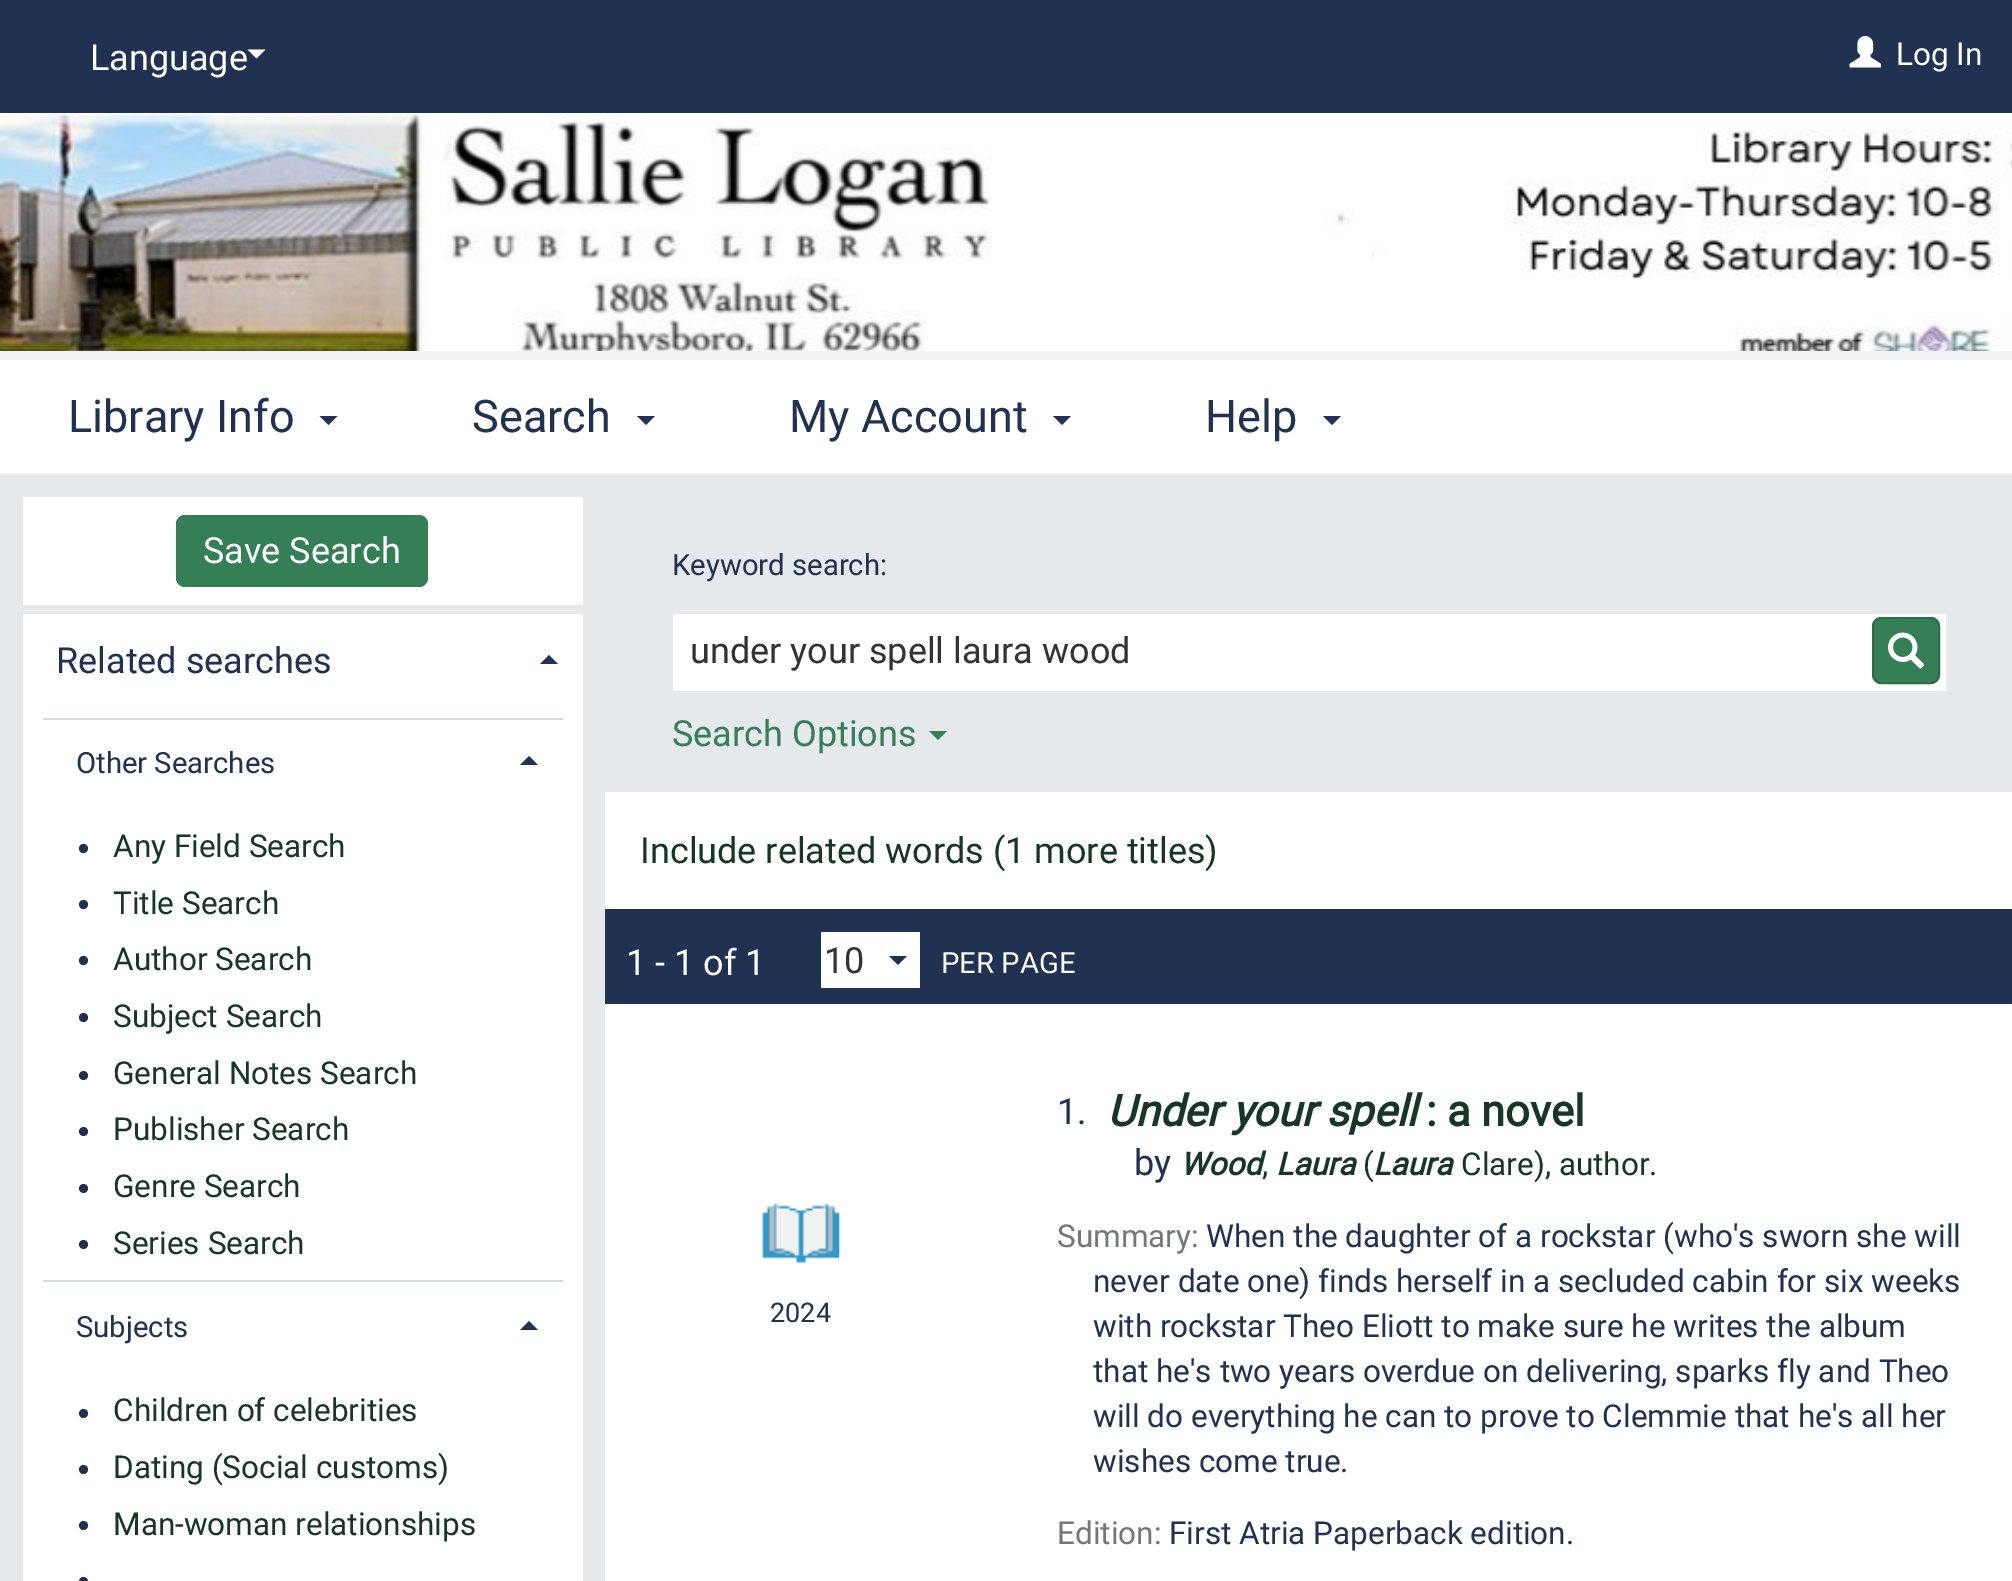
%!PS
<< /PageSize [2012 1581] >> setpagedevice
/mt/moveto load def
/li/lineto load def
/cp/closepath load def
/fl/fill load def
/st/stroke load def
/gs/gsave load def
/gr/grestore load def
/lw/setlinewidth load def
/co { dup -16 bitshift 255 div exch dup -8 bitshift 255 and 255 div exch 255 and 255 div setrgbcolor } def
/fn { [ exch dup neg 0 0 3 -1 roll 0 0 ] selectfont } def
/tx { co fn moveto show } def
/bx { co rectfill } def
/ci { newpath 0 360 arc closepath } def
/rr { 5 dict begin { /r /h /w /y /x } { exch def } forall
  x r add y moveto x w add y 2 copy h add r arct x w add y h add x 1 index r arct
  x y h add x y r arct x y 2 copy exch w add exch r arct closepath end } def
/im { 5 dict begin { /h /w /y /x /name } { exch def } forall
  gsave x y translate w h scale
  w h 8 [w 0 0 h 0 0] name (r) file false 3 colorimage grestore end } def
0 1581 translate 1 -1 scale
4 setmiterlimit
0 0 2012 1581 16#213152 bx
0 473 2012 2 16#F1F3F5 bx
16#FFFFFF co
247.5 49.5 mt 265.5 49.5 li 256.5 58.5 li cp fl
0 360 2012 113 16#FFFFFF bx
0 351 2012 9 16#F1F3F5 bx
16#213152 co
319.5 416 mt 337.5 416 li 328.5 425 li cp fl
637 416 mt 655 416 li 646 425 li cp fl
1053 416 mt 1071 416 li 1062 425 li cp fl
1323 416 mt 1341 416 li 1332 425 li cp fl
(media/1.raw) 1849 36 32 32 im
(media/2.raw) 0 113 2012 238 im
0 475 605 1106 16#E5E9EC bx
23 497 560 108 16#FFFFFF bx
16#347F56 co
176 515 252 72 9 rr fl
23 614 560 967 16#FFFFFF bx
16#213152 co
558 664 mt 540 664 li 549 655 li cp fl
43 718 520 2 16#D2DBED bx
16#213152 co
538 765 mt 520 765 li 529 756 li cp fl
83.5 848.5 4.5 ci fl
83.5 904.5 4.5 ci fl
83.5 960.5 4.5 ci fl
83.5 1017.5 4.5 ci fl
83.5 1075.5 4.5 ci fl
83.5 1131.5 4.5 ci fl
83.5 1188.5 4.5 ci fl
83.5 1244.5 4.5 ci fl
43 1280 520 2 16#D2DBED bx
16#213152 co
538 1330 mt 520 1330 li 529 1321 li cp fl
83.5 1413.5 4.5 ci fl
83.5 1469.5 4.5 ci fl
83.5 1525.5 4.5 ci fl
83.5 1581.5 4.5 ci fl
605 792 1407 789 16#FFFFFF bx
605 475 1407 317 16#E5E9EC bx
673 614 1273 77 16#FFFFFF bx
16#347F56 co
1873 618 66 65 8 rr gs fl gr
16#2D6D4A co
2 lw
st
(media/3.raw) 1888 632 36 37 im
16#347F56 co
929 731 mt 947 731 li 938 740 li cp fl
605 909 1407 95 16#213152 bx
821 932 99 56 16#FFFFFF bx
16#213152 co
889 956 mt 907 956 li 898 965 li cp fl
(media/4.raw) 762 1203 78 60 im
(Language) 90 70 /Roboto-Regular 36 16#FFFFFF tx
(Library Info) 68 432 /Roboto-Regular 45 16#213152 tx
(Search) 472 432 /Roboto-Regular 45 16#213152 tx
(My Account) 789 432 /Roboto-Regular 45 16#213152 tx
(Help) 1205 432 /Roboto-Regular 45 16#213152 tx
(Log In) 1896 65 /Roboto-Regular 31.5 16#FFFFFF tx
(Save Search) 203 563 /Roboto-Regular 36 16#FFFFFF tx
(Related searches) 56 673 /Roboto-Regular 36 16#213152 tx
(Other Searches) 76 773 /Roboto-Regular 29.25 16#213152 tx
(Any Field Search) 113 857 /Roboto-Regular 31.5 16#163725 tx
(Title Search) 113 914 /Roboto-Regular 31.5 16#163725 tx
(Author Search) 113 970 /Roboto-Regular 31.5 16#163725 tx
(Subject Search) 113 1027 /Roboto-Regular 31.5 16#163725 tx
(General Notes Search) 113 1084 /Roboto-Regular 31.5 16#163725 tx
(Publisher Search) 113 1140 /Roboto-Regular 31.5 16#163725 tx
(Genre Search) 113 1197 /Roboto-Regular 31.5 16#163725 tx
(Series Search) 113 1254 /Roboto-Regular 31.5 16#163725 tx
(Subjects) 76 1337 /Roboto-Regular 29.25 16#213152 tx
(Children of celebrities) 113 1421 /Roboto-Regular 31.5 16#163725 tx
(Dating \(Social customs\)) 113 1478 /Roboto-Regular 31.5 16#163725 tx
(Man-woman relationships) 113 1535 /Roboto-Regular 31.5 16#163725 tx
(Keyword search:) 672 575 /Roboto-Regular 29.25 16#213152 tx
(under your spell laura wood) 690 663 /Roboto-Regular 36 16#333333 tx
(Search Options) 672 746 /Roboto-Regular 36 16#347F56 tx
(Include related words \(1 more titles\)) 640 863 /Roboto-Regular 36 16#163725 tx
(1 - 1 of 1) 626 975 /Roboto-Regular 36 16#FFFFFF tx
(10) 824 973 /Roboto-Regular 36 16#333333 tx
(PER PAGE) 941 973 /Roboto-Regular 29.25 16#FFFFFF tx
(2024) 770 1322 /Roboto-Regular 27 16#213152 tx
(1.) 1057 1124 /Roboto-Regular 36 16#213152 tx
(Under your spell) 1107 1126 /Roboto-BoldItalic 43.25 16#163725 tx
(: a novel) 1426 1126 /Roboto-Bold 43.25 16#163725 tx
(by) 1134 1175 /Roboto-Regular 36 16#213152 tx
(Wood) 1180 1175 /Roboto-BoldItalic 31.5 16#163725 tx
(Laura) 1276 1175 /Roboto-BoldItalic 31.5 16#163725 tx
(\() 1363 1175 /Roboto-Regular 31.5 16#163725 tx
(Laura) 1373 1175 /Roboto-BoldItalic 31.5 16#163725 tx
(Clare\), author.) 1461 1175 /Roboto-Regular 31.5 16#163725 tx
(,) 1262 1175 /Roboto-Regular 31.5 16#163725 tx
(Summary:) 1057 1247 /Roboto-Regular 31.5 16#71777A tx
(When the daughter of a rockstar \(who's sworn she will) 1206 1247 /Roboto-Regular 31.5 16#213152 tx
(never date one\) finds herself in a secluded cabin for six weeks) 1093 1292 /Roboto-Regular 31.5 16#213152 tx
(with rockstar Theo Eliott to make sure he writes the album) 1093 1337 /Roboto-Regular 31.5 16#213152 tx
(that he's two years overdue on delivering, sparks fly and Theo) 1093 1382 /Roboto-Regular 31.5 16#213152 tx
(will do everything he can to prove to Clemmie that he's all her) 1093 1427 /Roboto-Regular 31.5 16#213152 tx
(wishes come true.) 1093 1472 /Roboto-Regular 31.5 16#213152 tx
(Edition:) 1057 1544 /Roboto-Regular 31.5 16#71777A tx
(First Atria Paperback edition.) 1169 1544 /Roboto-Regular 31.5 16#213152 tx
showpage
